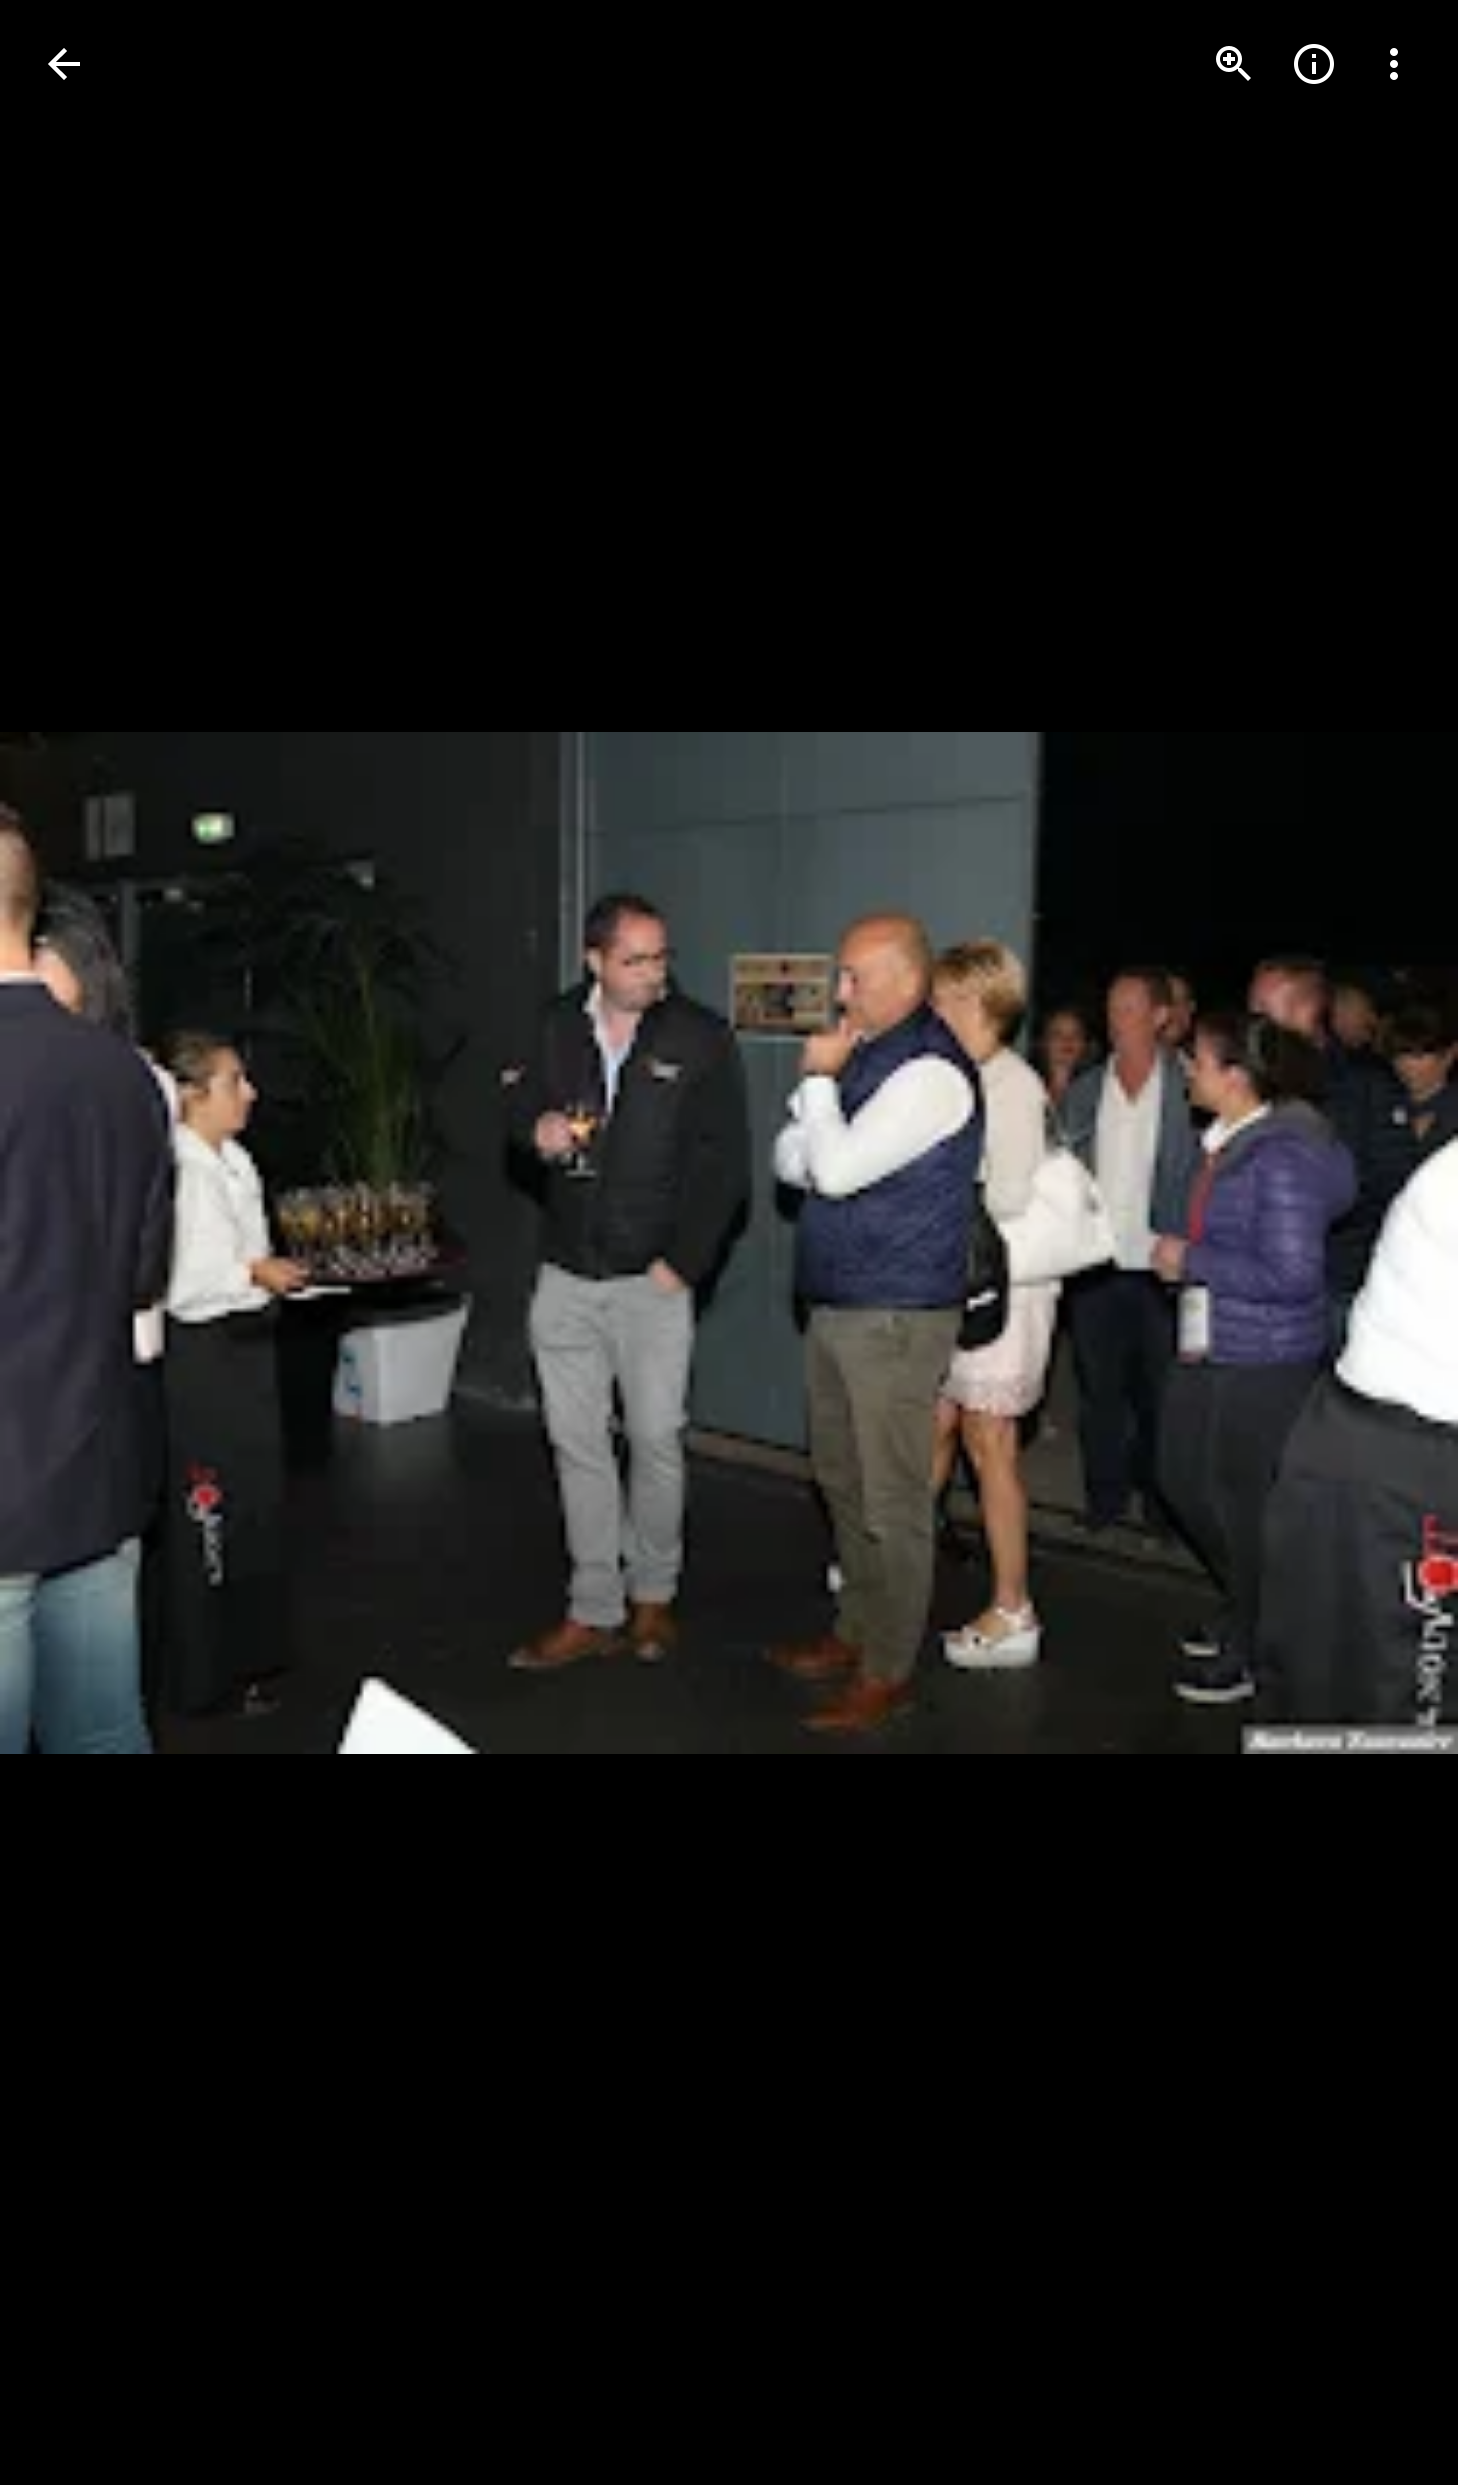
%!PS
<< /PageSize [1458 2485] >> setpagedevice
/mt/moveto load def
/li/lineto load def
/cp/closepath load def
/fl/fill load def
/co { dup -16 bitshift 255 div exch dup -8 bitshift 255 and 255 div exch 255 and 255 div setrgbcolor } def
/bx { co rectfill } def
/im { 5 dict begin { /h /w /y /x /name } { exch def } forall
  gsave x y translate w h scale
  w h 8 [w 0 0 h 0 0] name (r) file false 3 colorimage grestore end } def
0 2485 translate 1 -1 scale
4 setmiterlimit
0 0 1458 2485 16#000000 bx
16#FFFFFF co
80 62 mt 55.5 62 li 67 51 li 64 48 li 48 64 li 64 80 li 67 77 li 55.5 66 li 80 66 li cp fl
(media/1.raw) 1216 46 35 35 im
(media/2.raw) 1294 44 40 40 im
(media/3.raw) 1390 48 8 32 im
(media/4.raw) 0 732 1458 1022 im
showpage
